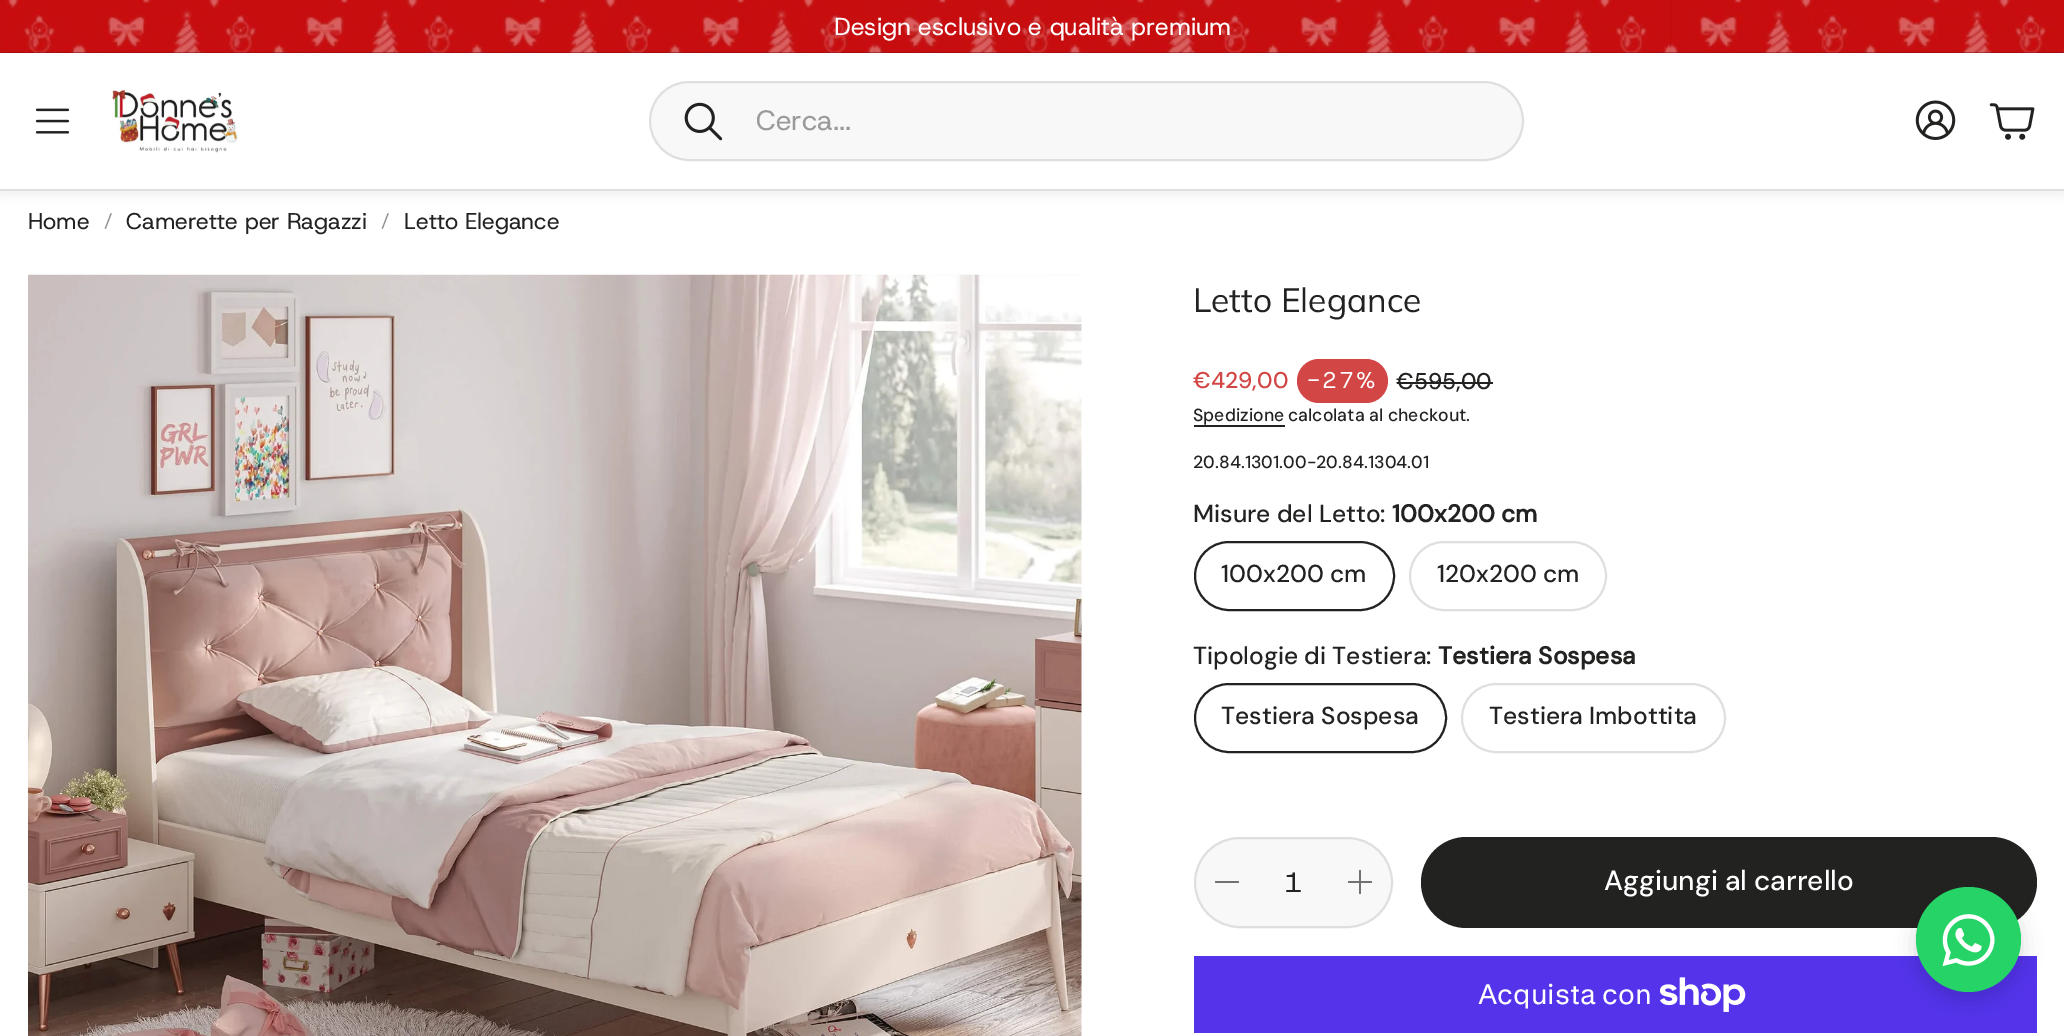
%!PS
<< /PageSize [2064 1036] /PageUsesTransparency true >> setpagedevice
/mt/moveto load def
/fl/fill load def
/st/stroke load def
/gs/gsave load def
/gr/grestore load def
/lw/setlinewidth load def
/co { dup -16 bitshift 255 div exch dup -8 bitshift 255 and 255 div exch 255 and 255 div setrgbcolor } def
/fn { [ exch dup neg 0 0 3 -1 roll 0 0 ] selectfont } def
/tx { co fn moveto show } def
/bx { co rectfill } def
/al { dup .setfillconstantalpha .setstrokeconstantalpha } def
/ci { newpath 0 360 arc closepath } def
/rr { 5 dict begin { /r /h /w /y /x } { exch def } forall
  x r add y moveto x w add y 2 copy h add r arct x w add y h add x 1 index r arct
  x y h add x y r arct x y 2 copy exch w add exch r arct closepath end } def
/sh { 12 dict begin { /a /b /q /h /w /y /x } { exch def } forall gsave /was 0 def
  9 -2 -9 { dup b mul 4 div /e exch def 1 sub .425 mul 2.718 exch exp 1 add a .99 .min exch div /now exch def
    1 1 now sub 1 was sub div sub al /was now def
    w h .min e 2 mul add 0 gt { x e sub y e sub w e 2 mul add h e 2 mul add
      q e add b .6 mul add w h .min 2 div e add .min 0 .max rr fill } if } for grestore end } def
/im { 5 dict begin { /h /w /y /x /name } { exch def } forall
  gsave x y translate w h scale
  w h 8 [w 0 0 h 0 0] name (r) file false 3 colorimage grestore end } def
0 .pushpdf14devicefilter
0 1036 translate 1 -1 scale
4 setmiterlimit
0 0 2064 1036 16#FFFFFF bx
0 52 2064 1 16#850E0E bx
(media/1.raw) 0 0 2064 53 im
16#000000 co
0 58 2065 138 0 5 .05 sh
0 54 2064 135 16#FFFFFF bx
0 189 2064 2 16#DFDFDF bx
(media/2.raw) 35 108 35 26 im
(media/3.raw) 110 88 128 65 im
16#F8F8F8 co
650 82 873 78 39 rr gs fl gr
16#DFDFDF co
2 lw
st
(media/4.raw) 684 102 39 39 im
(media/5.raw) 1915 100 41 40 im
(media/6.raw) 1989 103 46 37 im
(media/7.raw) 28 274 1054 762 im
16#D24646 co
1297 359 91 44 22 rr fl
1397 382 96 2 16#222321 bx
1194 425 91 2 16#222321 bx
1195 542 199 68 34 rr st
16#DFDFDF co
1410 542 196 68 34 rr st
16#222321 co
1195 684 251 68 34 rr st
16#DFDFDF co
1462 684 263 68 34 rr st
16#F8F8F8 co
1195 838 197 89 44.5 rr gs fl gr
16#DFDFDF co
st
16#717171 co
1215 881 24 2 1 rr fl
1348 881 24 2 1 rr fl
1359 870 2 24 1 rr fl
16#222321 co
1421 837 616 91 45.5 rr fl
1194 956 843 77 16#5433EB bx
(media/8.raw) 1660 977 86 35 im
16#000000 co
1916 894 105 105 52.5 10.5 .15 sh
16#25D366 co
1968.5 939.5 52.5 ci fl
(media/9.raw) 1942 914 53 53 im
(Design esclusivo e qualità premium) 834 35 /HostGrotesk-Regular 24.5 16#FFFFFF tx
(Cerca...) 756 130 /HostGrotesk-Regular 28 16#9A9A9A tx
(Home) 28 229 /HostGrotesk-Regular 22.75 16#222321 tx
(/) 104 227 /HostGrotesk-Regular 18 16#919190 tx
(Camerette per Ragazzi) 126 229 /HostGrotesk-Regular 22.75 16#222321 tx
(/) 381 227 /HostGrotesk-Regular 18 16#919190 tx
(Letto Elegance) 404 229 /HostGrotesk-Regular 22.75 16#222321 tx
(Letto Elegance) 1193 312 /Muli-Regular 33.5 16#222321 tx
(€429,00) 1193 388 /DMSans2-Medium 22.75 16#D24646 tx
/HostGrotesk-Regular 22.75 fn
16#FFFFFF co
1308 388 mt 2.5 0 (-27%) ashow
(€595,00) 1396 389 /DMSans2-Medium 22.75 16#222321 tx
(Spedizione) 1193 421 /DMSans-Medium 17.5 16#222321 tx
(calcolata al checkout.) 1288 421 /DMSans-Medium 17.5 16#222321 tx
(20.84.1301.00-20.84.1304.01) 1193 468 /DMSans-Medium 17.5 16#222321 tx
(Misure del Letto:) 1193 522 /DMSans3-Medium 24.5 16#222321 tx
(100x200 cm) 1392 522 /DMSans-Bold 24.5 16#222321 tx
(100x200 cm) 1221 582 /DMSans3-Medium 24.5 16#222321 tx
(120x200 cm) 1437 582 /DMSans3-Medium 24.5 16#222321 tx
(Tipologie di Testiera:) 1193 664 /DMSans3-Medium 24.5 16#222321 tx
(Testiera Sospesa) 1438 664 /DMSans-Bold 24.5 16#222321 tx
(Testiera Sospesa) 1221 724 /DMSans3-Medium 24.5 16#222321 tx
(Testiera Imbottita) 1489 724 /DMSans3-Medium 24.5 16#222321 tx
(1) 1284 892 /HostGrotesk-Regular 28 16#222321 tx
(Aggiungi al carrello) 1604 890 /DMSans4-Medium 28 16#FFFFFF tx
(Acquista con) 1478 1004 /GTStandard-Regular 28 16#FFFFFF tx
.poppdf14devicefilter showpage
